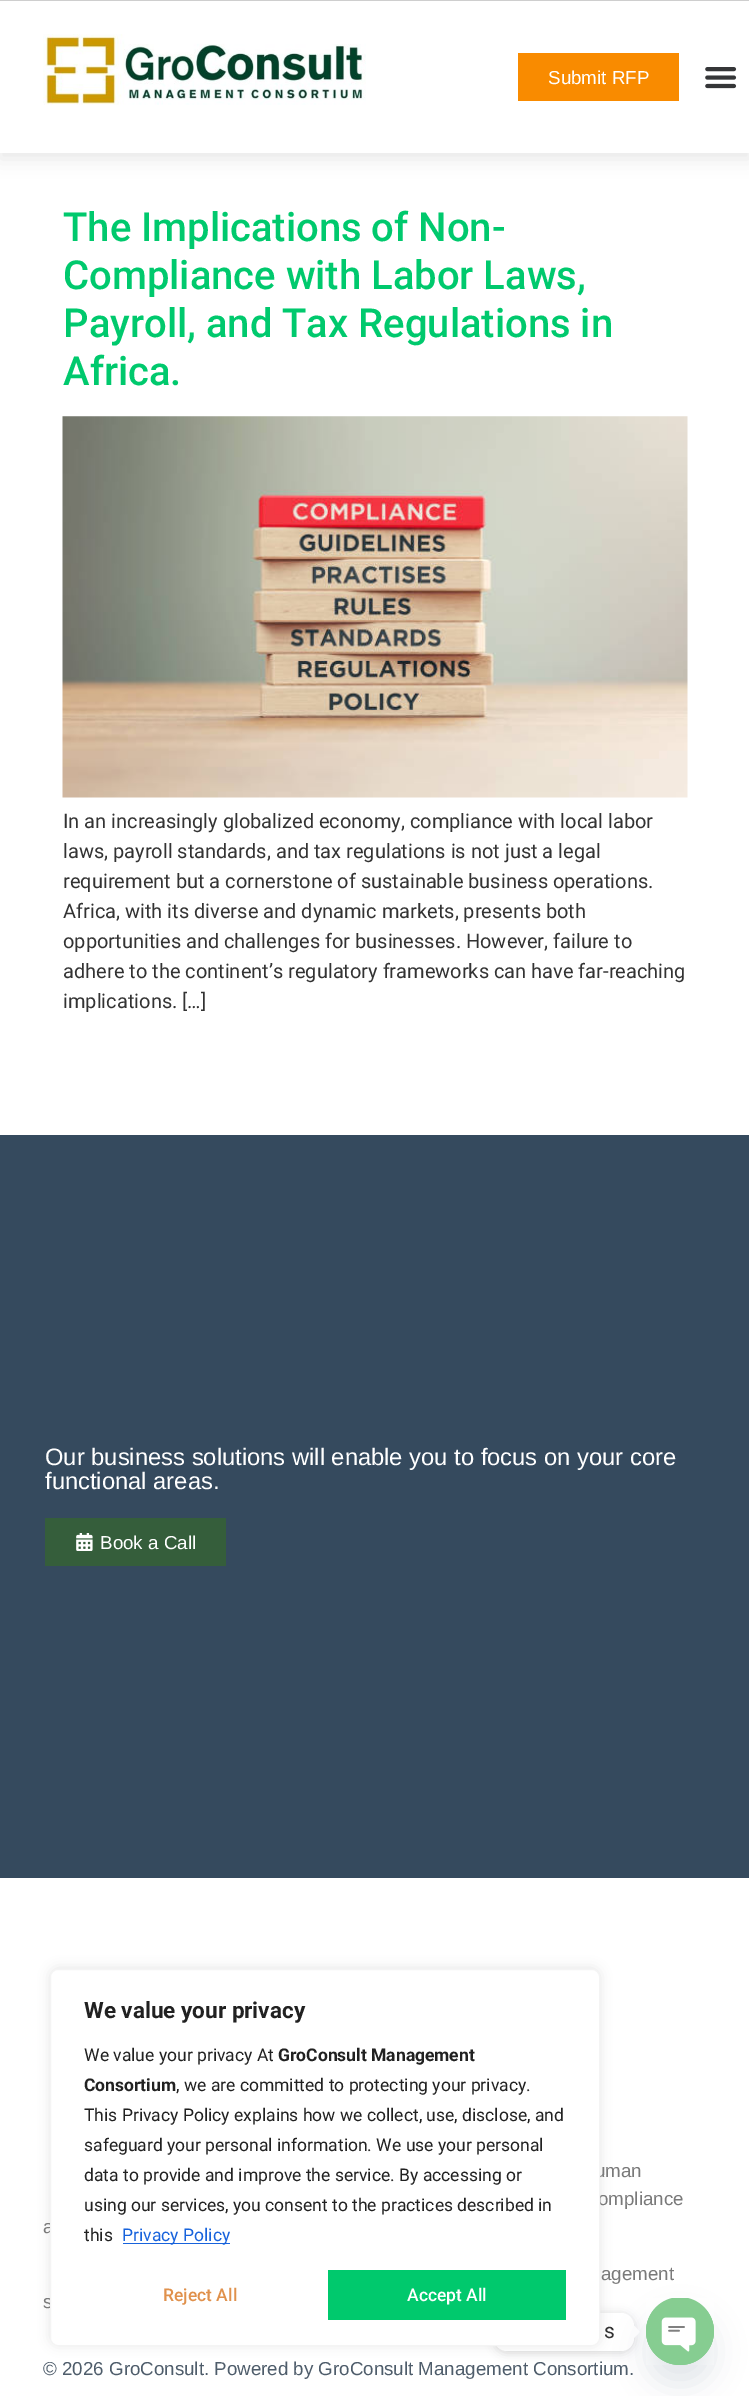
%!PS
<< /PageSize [749 2396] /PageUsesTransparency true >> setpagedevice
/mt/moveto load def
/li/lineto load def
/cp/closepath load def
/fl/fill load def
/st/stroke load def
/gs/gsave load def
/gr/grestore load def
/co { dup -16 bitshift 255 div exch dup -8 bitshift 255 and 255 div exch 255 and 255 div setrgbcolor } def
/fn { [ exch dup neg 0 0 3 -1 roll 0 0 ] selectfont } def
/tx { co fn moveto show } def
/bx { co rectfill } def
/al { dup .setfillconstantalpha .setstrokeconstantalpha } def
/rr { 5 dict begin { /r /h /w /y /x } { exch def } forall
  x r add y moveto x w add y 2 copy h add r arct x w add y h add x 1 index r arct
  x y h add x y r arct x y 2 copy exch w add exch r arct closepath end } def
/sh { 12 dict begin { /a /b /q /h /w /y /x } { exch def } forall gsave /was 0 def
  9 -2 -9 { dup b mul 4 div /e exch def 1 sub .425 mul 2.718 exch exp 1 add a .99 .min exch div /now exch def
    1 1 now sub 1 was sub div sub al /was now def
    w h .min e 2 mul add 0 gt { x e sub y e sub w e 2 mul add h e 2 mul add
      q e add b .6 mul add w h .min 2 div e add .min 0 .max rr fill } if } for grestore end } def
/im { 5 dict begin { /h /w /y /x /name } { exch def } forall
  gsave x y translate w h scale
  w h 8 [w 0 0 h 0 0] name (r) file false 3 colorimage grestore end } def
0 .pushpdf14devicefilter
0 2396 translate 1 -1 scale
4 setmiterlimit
0 0 749 2396 16#FFFFFF bx
16#C9C9C9 co
0 6 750 153 0 9 .44 sh
0 1 749 152 16#FFFFFF bx
0 0 749 1 16#CECECE bx
(media/1.raw) 43 34 323 71 im
518 53 161 48 16#F98B00 bx
(media/2.raw) 705 67 32 22 im
(media/3.raw) 62 416 626 382 im
0 1135 749 743 16#354A5E bx
45 1518 181 48 16#355E3B bx
(media/4.raw) 76 1533 17 18 im
16#000000 co
494 2314 140 39 13 5 .15 sh
16#FFFFFF co
494 2313 140 38 13 rr fl
16#ACABAB co
50 1968 550 377 8 6 .3 sh
16#FFFFFF co
634 2338 mt 634 2325.5 li 640 2332 li cp fl
16#49687E co
646 2318 68 67 33.5 15 .16 sh
16#86CD91 co
646 2298 68 67 33.5 rr fl
(media/5.raw) 646 2298 68 67 im
(Submit RFP) 548 84 /LiberationSans-Regular 18.75 16#FFFFFF tx
(The Implications of Non-) 63 241 /Roboto-Medium 40 16#00C96D tx
(Compliance with Labor Laws,) 63 289 /Roboto-Medium 40 16#00C96D tx
(Payroll, and Tax Regulations in) 63 337 /Roboto-Medium 40 16#00C96D tx
(Africa.) 63 385 /Roboto-Medium 40 16#00C96D tx
(In an increasingly globalized economy, compliance with local labor) 63 828 /Roboto-Regular 20 16#333333 tx
(laws, payroll standards, and tax regulations is not just a legal) 63 858 /Roboto-Regular 20 16#333333 tx
(requirement but a cornerstone of sustainable business operations.) 63 888 /Roboto-Regular 20 16#333333 tx
(Africa, with its diverse and dynamic markets, presents both) 63 918 /Roboto-Regular 20 16#333333 tx
(opportunities and challenges for businesses. However, failure to) 63 948 /Roboto-Regular 20 16#333333 tx
(adhere to the continent’s regulatory frameworks can have far-reaching) 63 978 /Roboto-Regular 20 16#333333 tx
(implications. […]) 63 1008 /Roboto-Regular 20 16#333333 tx
(Our business solutions will enable you to focus on your core) 45 1465 /LiberationSans-Regular 23.75 16#FFFFFF tx
(functional areas.) 45 1489 /LiberationSans-Regular 23.75 16#FFFFFF tx
(Book a Call) 100 1549 /LiberationSans-Regular 18.75 16#FFFFFF tx
(uman) 595 2177 /LiberationSans-Regular 18.75 16#7A7A7A tx
(ompliance) 598 2205 /LiberationSans-Regular 18.75 16#7A7A7A tx
(a) 43 2233 /LiberationSans-Regular 18.75 16#7A7A7A tx
(agement) 601 2280 /LiberationSans-Regular 18.75 16#7A7A7A tx
(s) 43 2308 /LiberationSans-Regular 18.75 16#7A7A7A tx
(© 2026 GroConsult. Powered by GroConsult Management Consortium.) 43 2375 /LiberationSans-Regular 18.75 16#4F5D6B tx
16#FFFFFF co
50.5 1969.5 549 376 7.5 rr gs fl gr
16#F4F4F4 co
st
(We value your privacy) 84 2018 /Roboto-Bold 22.5 16#212121 tx
(We value your privacy At) 84 2061 /Roboto-Regular 17.5 16#212121 tx
(GroConsult Management) 278 2061 /Roboto-Bold 17.5 16#212121 tx
(Consortium) 84 2091 /Roboto-Bold 17.5 16#212121 tx
(, we are committed to protecting your privacy.) 176 2091 /Roboto-Regular 17.5 16#212121 tx
(This Privacy Policy explains how we collect, use, disclose, and) 84 2121 /Roboto-Regular 17.5 16#212121 tx
(safeguard your personal information. We use your personal) 84 2151 /Roboto-Regular 17.5 16#212121 tx
(data to provide and improve the service. By accessing or) 84 2181 /Roboto-Regular 17.5 16#212121 tx
(using our services, you consent to the practices described in) 84 2211 /Roboto-Regular 17.5 16#212121 tx
(this) 84 2241 /Roboto-Regular 17.5 16#212121 tx
123 2243 107 1 16#1863DC bx
(Privacy Policy) 122 2241 /Roboto-Regular 17.5 16#1863DC tx
(Reject All) 163 2301 /Roboto-Medium 17.5 16#E0914C tx
328 2270 238 50 16#00C96D bx
(Accept All) 407 2301 /Roboto-Medium 17.5 16#FFFFFF tx
(s) 604 2338 /Roboto-Regular 21 16#333333 tx
.poppdf14devicefilter showpage
